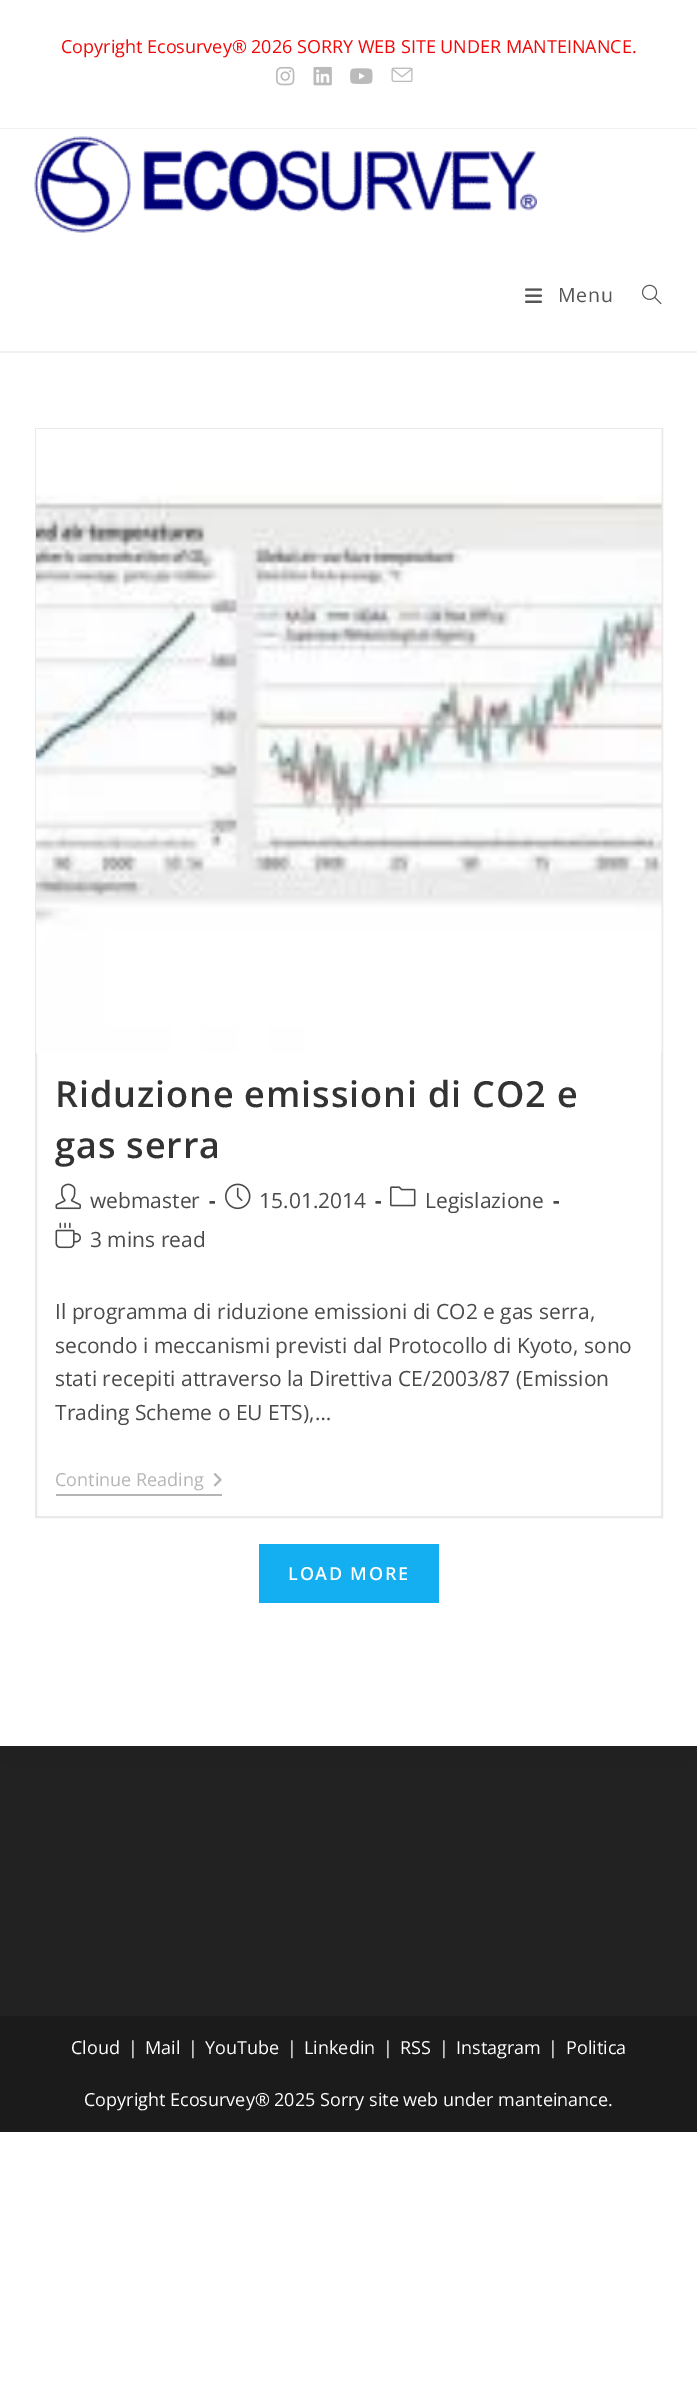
%!PS
<< /PageSize [697 2387] /PageUsesTransparency true >> setpagedevice
/mt/moveto load def
/gs/gsave load def
/gr/grestore load def
/lw/setlinewidth load def
/co { dup -16 bitshift 255 div exch dup -8 bitshift 255 and 255 div exch 255 and 255 div setrgbcolor } def
/fn { [ exch dup neg 0 0 3 -1 roll 0 0 ] selectfont } def
/tx { co fn moveto show } def
/bx { co rectfill } def
/al { dup .setfillconstantalpha .setstrokeconstantalpha } def
/rr { 5 dict begin { /r /h /w /y /x } { exch def } forall
  x r add y moveto x w add y 2 copy h add r arct x w add y h add x 1 index r arct
  x y h add x y r arct x y 2 copy exch w add exch r arct closepath end } def
/sh { 12 dict begin { /a /b /q /h /w /y /x } { exch def } forall gsave /was 0 def
  9 -2 -9 { dup b mul 4 div /e exch def 1 sub .425 mul 2.718 exch exp 1 add a .99 .min exch div /now exch def
    1 1 now sub 1 was sub div sub al /was now def
    w h .min e 2 mul add 0 gt { x e sub y e sub w e 2 mul add h e 2 mul add
      q e add b .6 mul add w h .min 2 div e add .min 0 .max rr fill } if } for grestore end } def
/im { 5 dict begin { /h /w /y /x /name } { exch def } forall
  gsave x y translate w h scale
  w h 8 [w 0 0 h 0 0] name (r) file false 3 colorimage grestore end } def
0 .pushpdf14devicefilter
0 2387 translate 1 -1 scale
4 setmiterlimit
0 0 697 2387 16#FFFFFF bx
0 128 697 1 16#F1F1F1 bx
(media/1.raw) 276 66 19 20 im
(media/2.raw) 313 66 19 20 im
(media/3.raw) 350 68 23 16 im
(media/4.raw) 391 67 22 15 im
0 1746 697 270 16#222222 bx
gs
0 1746 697 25 rectclip
16#000000 co
0 353 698 1393 0 30 .1 sh
gr
0 315 697 36 16#FFFFFF bx
0 351 697 2 16#F1F1F1 bx
(media/5.raw) 34 136 503 97 im
(media/6.raw) 525 288 17 15 im
(media/7.raw) 641 284 21 21 im
16#E9E9E9 co
2 lw
36 429 626 1088 rectstroke
(media/8.raw) 36 429 626 624 im
(media/9.raw) 55 1183 26 27 im
(media/10.raw) 225 1183 26 27 im
(media/11.raw) 390 1186 26 21 im
(media/12.raw) 55 1222 26 27 im
56 1494 166 2 16#B6B4B4 bx
(media/13.raw) 213 1473 9 14 im
259 1544 180 59 16#13AFF0 bx
0 2016 697 116 16#1B1B1B bx
(Copyright Ecosurvey® 2026 SORRY WEB SITE UNDER MANTEINANCE.) 61 53 /OpenSans-Regular 18 16#F00707 tx
/OpenSans-Regular 19.5 fn
16#555555 co
558 302 mt .9 0 (Menu) ashow
/OpenSans-SemiBold 36 fn
16#333333 co
55 1107 mt .9 0 (Riduzione emissioni di CO2 e) ashow
55 1158 mt .9 0 (gas serra) ashow
(webmaster) 90 1208 /OpenSans-Regular 21 16#4A4A4A tx
(-) 209 1208 /OpenSans-Bold 21 16#4A4A4A tx
(15.01.2014) 259 1208 /OpenSans-Regular 21 16#4A4A4A tx
(-) 375 1208 /OpenSans-Bold 21 16#4A4A4A tx
(Legislazione) 425 1208 /OpenSans-Regular 21 16#4A4A4A tx
(-) 553 1208 /OpenSans-Bold 21 16#4A4A4A tx
(3 mins read) 90 1247 /OpenSans-Regular 21 16#4A4A4A tx
(Il programma di riduzione emissioni di CO2 e gas serra,) 55 1319 /OpenSans-Regular 21 16#4A4A4A tx
(secondo i meccanismi previsti dal Protocollo di Kyoto, sono) 55 1353 /OpenSans-Regular 21 16#4A4A4A tx
(stati recepiti attraverso la Direttiva CE/2003/87 \(Emission) 55 1386 /OpenSans-Regular 21 16#4A4A4A tx
(Trading Scheme o EU ETS\),…) 55 1420 /OpenSans-Regular 21 16#4A4A4A tx
(Continue Reading) 55 1486 /OpenSans-Regular 18 16#B6B4B4 tx
/OpenSans-SemiBold 18 fn
16#FFFFFF co
288 1580 mt 1.75 0 (LOAD MORE) ashow
(Cloud) 71 2054 /OpenSans-Regular 18 16#FFFFFF tx
(|) 128 2054 /OpenSans-Regular 18 16#FFFFFF tx
(Mail) 145 2054 /OpenSans-Regular 18 16#FFFFFF tx
(|) 188 2054 /OpenSans-Regular 18 16#FFFFFF tx
(YouTube) 205 2054 /OpenSans-Regular 18 16#FFFFFF tx
(|) 287 2054 /OpenSans-Regular 18 16#FFFFFF tx
(Linkedin) 304 2054 /OpenSans-Regular 18 16#FFFFFF tx
(|) 383 2054 /OpenSans-Regular 18 16#FFFFFF tx
(RSS) 400 2054 /OpenSans-Regular 18 16#FFFFFF tx
(|) 439 2054 /OpenSans-Regular 18 16#FFFFFF tx
(Instagram) 456 2054 /OpenSans-Regular 18 16#FFFFFF tx
(|) 548 2054 /OpenSans-Regular 18 16#FFFFFF tx
(Politica) 566 2054 /OpenSans-Regular 18 16#FFFFFF tx
(Copyright Ecosurvey® 2025 Sorry site web under manteinance.) 84 2106 /OpenSans-Regular 18 16#FFFFFF tx
.poppdf14devicefilter showpage
